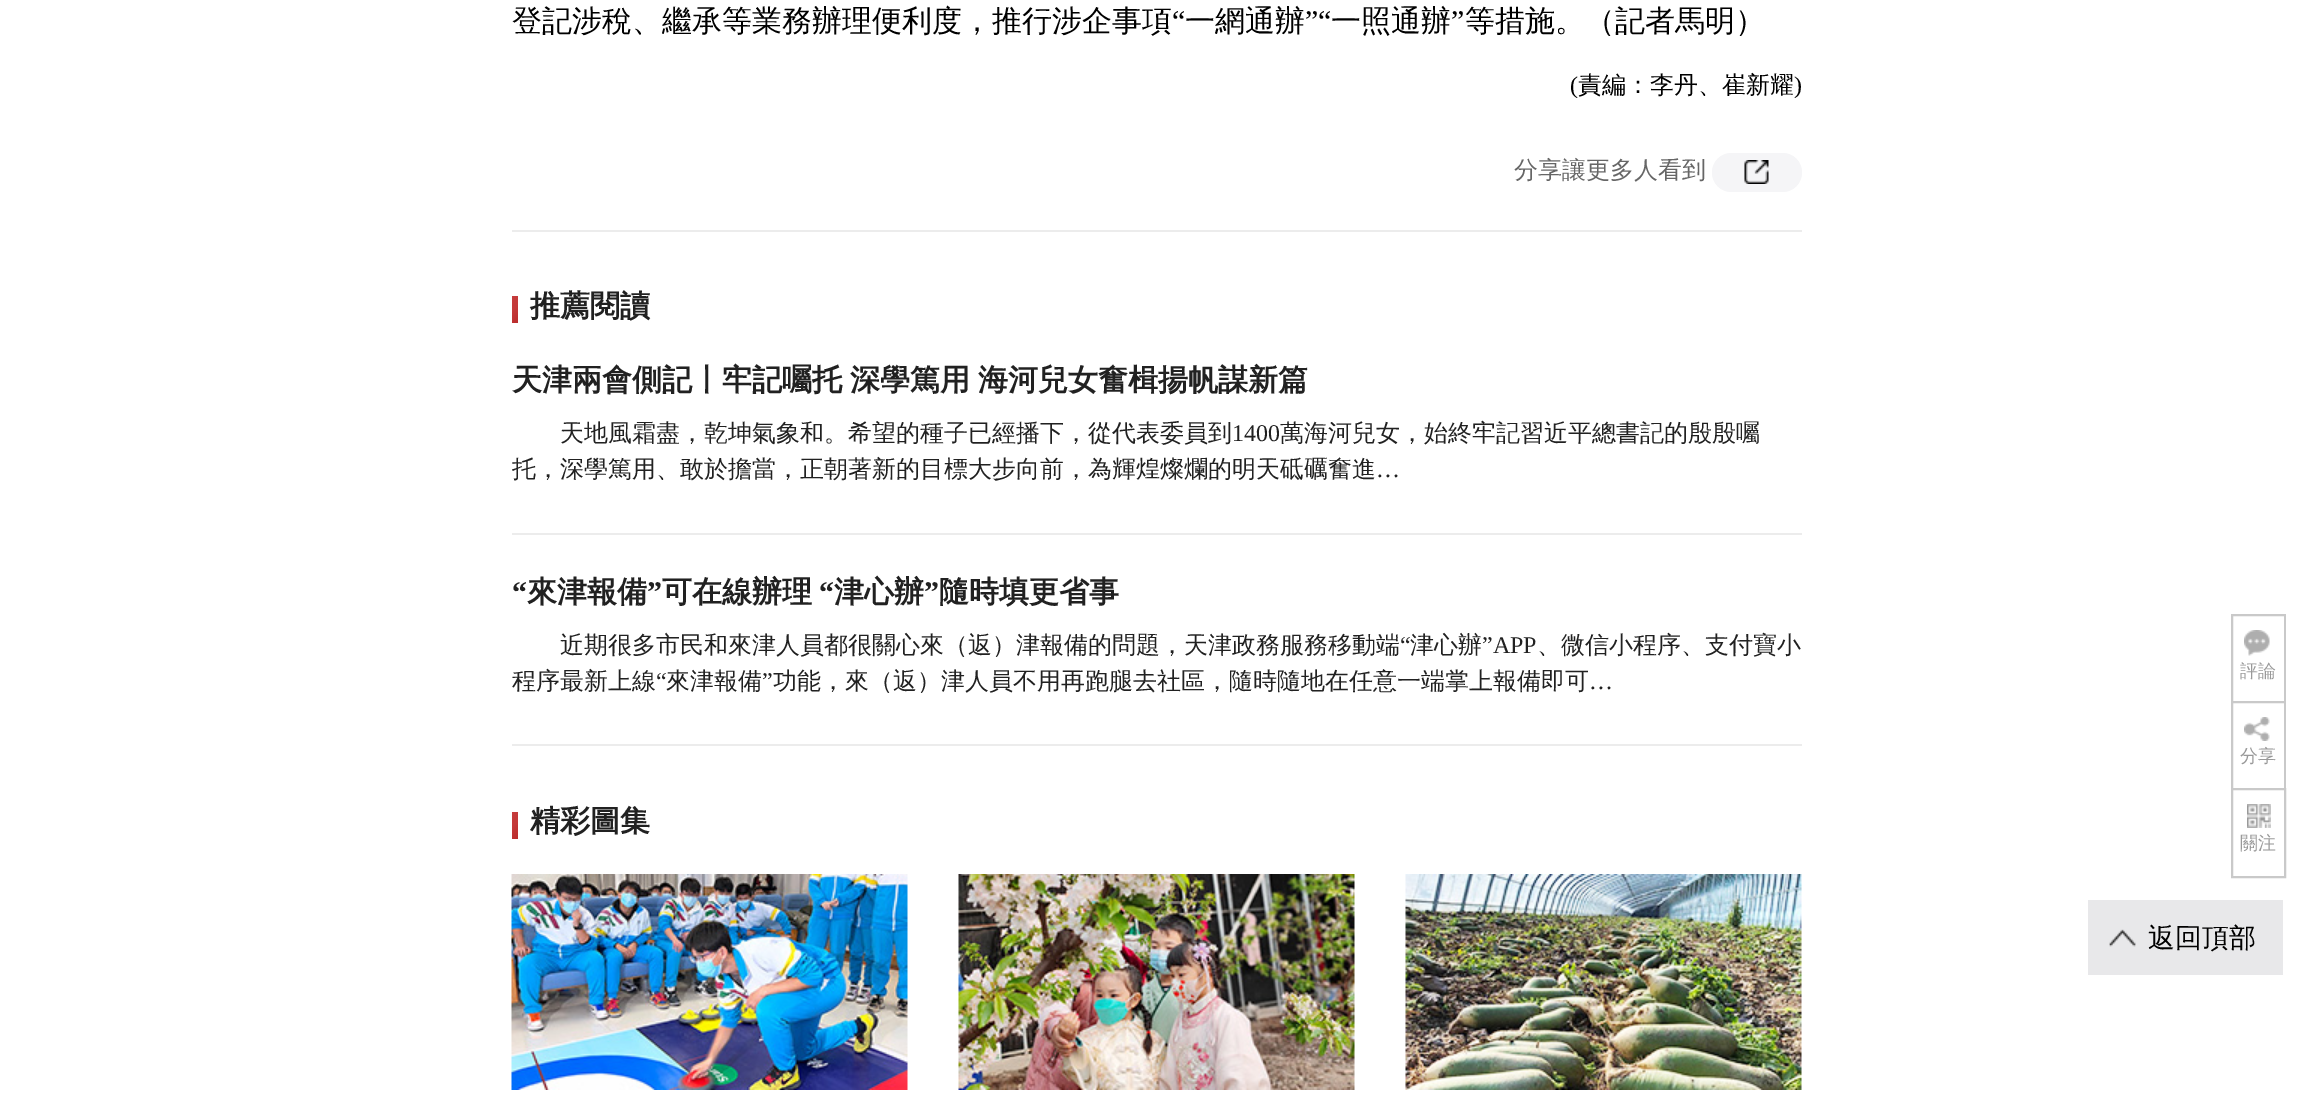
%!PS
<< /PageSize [2313 1094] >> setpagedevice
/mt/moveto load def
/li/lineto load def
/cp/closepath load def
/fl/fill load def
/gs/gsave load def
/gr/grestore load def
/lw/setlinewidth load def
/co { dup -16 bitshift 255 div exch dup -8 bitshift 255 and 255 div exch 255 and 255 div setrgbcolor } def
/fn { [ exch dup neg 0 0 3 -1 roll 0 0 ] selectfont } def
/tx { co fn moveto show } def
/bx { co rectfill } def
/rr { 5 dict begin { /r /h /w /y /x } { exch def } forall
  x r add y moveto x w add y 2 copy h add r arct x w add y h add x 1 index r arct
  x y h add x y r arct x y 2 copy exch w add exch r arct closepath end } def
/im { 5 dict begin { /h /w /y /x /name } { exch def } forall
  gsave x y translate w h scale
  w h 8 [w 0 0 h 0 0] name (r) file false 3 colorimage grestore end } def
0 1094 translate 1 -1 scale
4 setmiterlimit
0 0 2313 1094 16#FFFFFF bx
16#F5F5F7 co
1712 153 90 39 19.5 rr fl
(media/1.raw) 1744 160 25 24 im
512 230 1290 2 16#ECECEC bx
gs 512 296 mt 518 296 li 518 323 li 512 323 li cp clip newpath
<< /ShadingType 2 /ColorSpace /DeviceRGB /Coords [506 301 523 317] /Extend [true true] /Function << /FunctionType 3 /Domain [0 1] /Functions [<< /FunctionType 2 /Domain [0 1] /C0 [.773 .239 .239] /C1 [.769 .227 .227] /N 1 >> << /FunctionType 2 /Domain [0 1] /C0 [.769 .227 .227] /C1 [.733 .176 .176] /N 1 >>] /Bounds [.49] /Encode [0 1 0 1] >> >> shfill gr
512 533 1290 2 16#ECECEC bx
512 744 1290 2 16#ECECEC bx
gs 512 812 mt 518 812 li 518 839 li 512 839 li cp clip newpath
<< /ShadingType 2 /ColorSpace /DeviceRGB /Coords [506 817 523 833] /Extend [true true] /Function << /FunctionType 3 /Domain [0 1] /Functions [<< /FunctionType 2 /Domain [0 1] /C0 [.773 .239 .239] /C1 [.769 .227 .227] /N 1 >> << /FunctionType 2 /Domain [0 1] /C0 [.769 .227 .227] /C1 [.733 .176 .176] /N 1 >>] /Bounds [.49] /Encode [0 1 0 1] >> >> shfill gr
(media/2.raw) 511 874 397 216 im
(media/3.raw) 958 874 397 216 im
(media/4.raw) 1405 874 397 216 im
gs
2231 614 55 87 rectclip
16#C9C9C9 co
2 lw
2232 615 53 89 rectstroke
gr
(media/5.raw) 2244 630 26 26 im
gs
2231 701 55 87 rectclip
16#C9C9C9 co
2 lw
2232 702 53 88 rectstroke
gr
(media/6.raw) 2244 717 26 24 im
16#C9C9C9 co
2 lw
2232 789 53 88 rectstroke
(media/7.raw) 2247 804 24 24 im
(media/8.raw) 2088 900 195 75 im
(登記涉稅、繼承等業務辦理便利度，推行涉企事項) 512 31 /WenQuanYiZenHei-Medium 30 16#000000 tx
(“) 1172 31 /LiberationSerif-Regular 30 16#000000 tx
(一網通辦) 1185 31 /WenQuanYiZenHei-Medium 30 16#000000 tx
(”“) 1305 31 /LiberationSerif-Regular 30 16#000000 tx
(一照通辦) 1331 31 /WenQuanYiZenHei-Medium 30 16#000000 tx
(”) 1451 31 /LiberationSerif-Regular 30 16#000000 tx
(等措施。（記者馬明）) 1465 31 /WenQuanYiZenHei-Medium 30 16#000000 tx
(\() 1570 93 /LiberationSerif-Regular 24 16#000000 tx
(責編：李丹、崔新耀) 1578 93 /WenQuanYiZenHei-Medium 24 16#000000 tx
(\)) 1794 93 /LiberationSerif-Regular 24 16#000000 tx
(分享讓更多人看到) 1514 178 /WenQuanYiZenHei-Medium 24 16#666666 tx
(推薦閱讀) 530 316 /WenQuanYiZenHei-Bold 30 16#212121 tx
512 390 mt -1 0 32 (天津兩會側記丨牢記囑托 深學篤用 海河兒女奮楫揚帆謀新篇) widthshow
(天地風霜盡，乾坤氣象和。希望的種子已經播下，從代表委員到) 560 441 /WenQuanYiZenHei-Medium 24 16#212121 tx
(1400) 1232 441 /LiberationSerif-Regular 24 16#212121 tx
(萬海河兒女，始終牢記習近平總書記的殷殷囑) 1280 441 /WenQuanYiZenHei-Medium 24 16#212121 tx
(托，深學篤用、敢於擔當，正朝著新的目標大步向前，為輝煌燦爛的明天砥礪奮進) 512 477 /WenQuanYiZenHei-Medium 24 16#212121 tx
(…) 1376 477 /LiberationSerif-Regular 24 16#212121 tx
(“) 512 602 /LiberationSerif-Bold 30 16#212121 tx
(來津報備) 527 602 /WenQuanYiZenHei-Bold 30 16#212121 tx
(”) 647 602 /LiberationSerif-Bold 30 16#212121 tx
(可在線辦理) 662 602 /WenQuanYiZenHei-Bold 30 16#212121 tx
(“) 819 602 /LiberationSerif-Bold 30 16#212121 tx
(津心辦) 834 602 /WenQuanYiZenHei-Bold 30 16#212121 tx
(”) 924 602 /LiberationSerif-Bold 30 16#212121 tx
(隨時填更省事) 939 602 /WenQuanYiZenHei-Bold 30 16#212121 tx
(近期很多市民和來津人員都很關心來（返）津報備的問題，天津政務服務移動端) 560 653 /WenQuanYiZenHei-Medium 24 16#212121 tx
(“) 1400 653 /LiberationSerif-Regular 24 16#212121 tx
(津心辦) 1410 653 /WenQuanYiZenHei-Medium 24 16#212121 tx
(”APP) 1482 653 /LiberationSerif-Regular 24 16#212121 tx
(、微信小程序、支付寶小) 1537 653 /WenQuanYiZenHei-Medium 24 16#212121 tx
(程序最新上線) 512 689 /WenQuanYiZenHei-Medium 24 16#212121 tx
(“) 656 689 /LiberationSerif-Regular 24 16#212121 tx
(來津報備) 666 689 /WenQuanYiZenHei-Medium 24 16#212121 tx
(”) 762 689 /LiberationSerif-Regular 24 16#212121 tx
(功能，來（返）津人員不用再跑腿去社區，隨時隨地在任意一端掌上報備即可) 773 689 /WenQuanYiZenHei-Medium 24 16#212121 tx
(…) 1589 689 /LiberationSerif-Regular 24 16#212121 tx
(精彩圖集) 530 831 /WenQuanYiZenHei-Bold 30 16#212121 tx
(評論) 2240 677 /WenQuanYiZenHei-Medium 18 16#999999 tx
(分享) 2240 762 /WenQuanYiZenHei-Medium 18 16#999999 tx
(關注) 2240 849 /WenQuanYiZenHei-Medium 18 16#999999 tx
(返回頂部) 2148 947 /WenQuanYiZenHei-Medium 27 16#000000 tx
showpage
